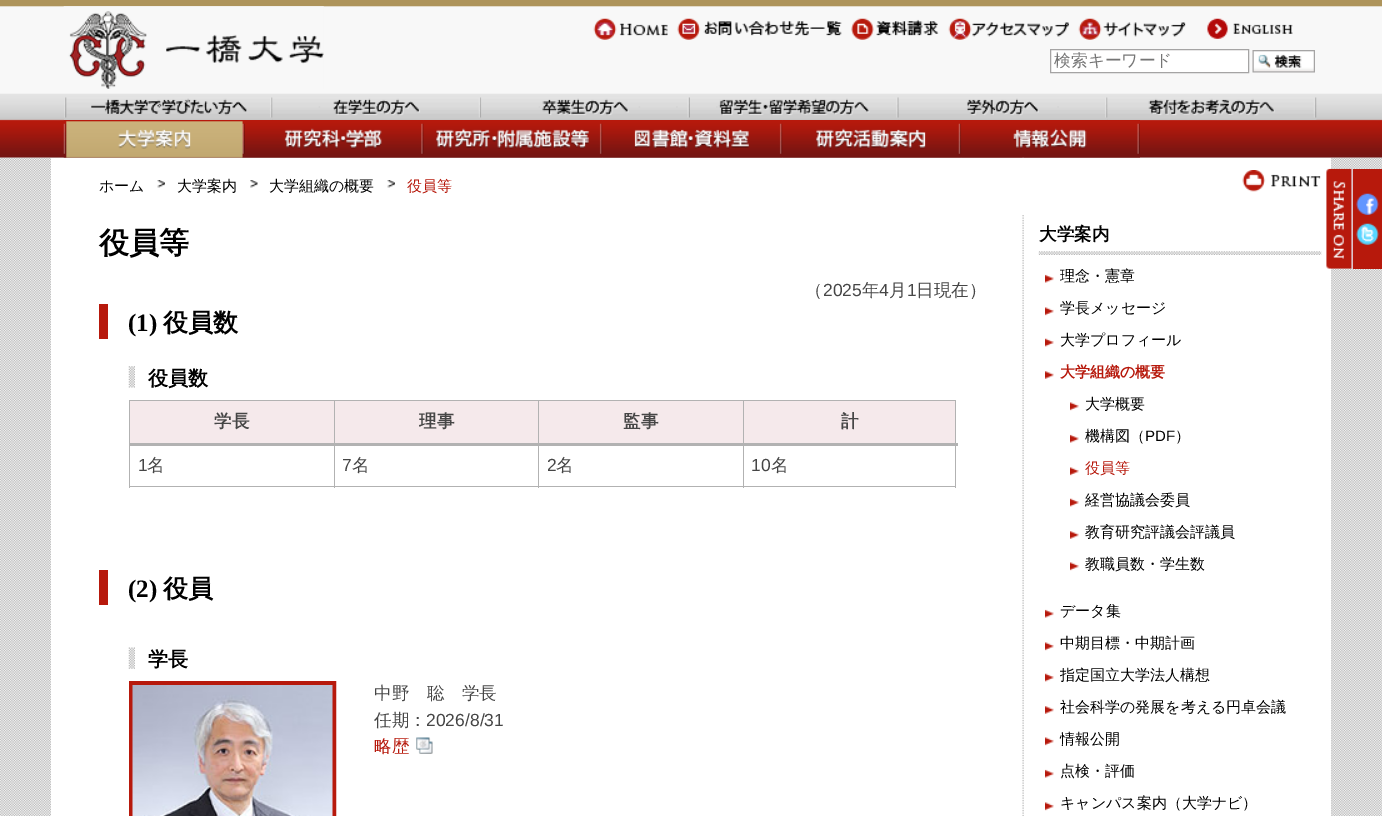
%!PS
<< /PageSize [1382 816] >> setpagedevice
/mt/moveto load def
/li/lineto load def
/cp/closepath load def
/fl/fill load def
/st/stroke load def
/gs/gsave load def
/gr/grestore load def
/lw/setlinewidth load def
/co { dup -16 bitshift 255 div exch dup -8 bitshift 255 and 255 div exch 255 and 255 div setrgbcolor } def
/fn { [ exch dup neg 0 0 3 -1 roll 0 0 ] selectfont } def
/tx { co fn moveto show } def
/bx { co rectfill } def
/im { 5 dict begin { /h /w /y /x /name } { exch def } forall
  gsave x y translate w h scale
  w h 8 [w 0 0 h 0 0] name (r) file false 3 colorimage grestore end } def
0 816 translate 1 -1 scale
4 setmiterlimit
0 0 1382 816 16#FFFFFF bx
(media/1.raw) 0 157 1382 659 im
(media/2.raw) 0 0 1382 158 im
(media/3.raw) 63 6 261 83 im
(media/4.raw) 593 18 75 22 im
(media/5.raw) 677 18 165 22 im
(media/6.raw) 851 18 88 22 im
(media/7.raw) 948 18 121 22 im
(media/8.raw) 1078 18 108 22 im
(media/9.raw) 1207 18 86 21 im
1050.5 49.5 mt 1248.5 49.5 li 1248.5 72.5 li 1050.5 72.5 li cp gs fl gr
16#A5A4A4 co
st
(media/10.raw) 1252 50 63 23 im
(media/11.raw) 64 97 209 23 im
(media/12.raw) 272 97 210 23 im
(media/13.raw) 481 97 209 23 im
(media/14.raw) 690 97 209 23 im
(media/15.raw) 898 97 210 23 im
(media/16.raw) 1107 97 210 23 im
(media/17.raw) 63 120 182 38 im
(media/18.raw) 245 120 179 38 im
(media/19.raw) 423 120 180 38 im
(media/20.raw) 602 120 181 38 im
(media/21.raw) 782 120 180 38 im
51 158 1280 658 16#FFFFFF bx
(media/23.raw) 1022 157 2 659 im
(media/22.raw) 961 120 179 38 im
1022 158 2 57 16#FFFFFF bx
(media/24.raw) 157 180 8 8 im
(media/25.raw) 250 180 8 8 im
(media/26.raw) 387 180 8 8 im
(media/27.raw) 1242 170 79 22 im
99 304 9 35 16#B7190C bx
(media/28.raw) 128 366 7 22 im
129 400 827 1 16#B2B2B2 bx
129 400 1 88 16#B2B2B2 bx
130 401 204 42 16#F5E9EB bx
335 401 203 42 16#F5E9EB bx
539 401 204 42 16#F5E9EB bx
744 401 211 42 16#F5E9EB bx
955 400 1 88 16#B2B2B2 bx
743 486 213 1 16#B2B2B2 bx
743 400 1 88 16#B2B2B2 bx
538 486 206 1 16#B2B2B2 bx
538 400 1 88 16#B2B2B2 bx
334 486 205 1 16#B2B2B2 bx
334 400 1 88 16#B2B2B2 bx
129 443 829 3 16#B2B2B2 bx
129 486 206 1 16#B2B2B2 bx
99 570 9 35 16#B7190C bx
(media/29.raw) 128 647 7 22 im
4 lw
131 683 203 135 rectstroke
(media/30.raw) 132 685 201 131 im
(media/31.raw) 416 737 17 17 im
(media/32.raw) 1038 251 284 4 im
(media/33.raw) 1045 274 9 9 im
(media/34.raw) 1045 307 9 9 im
(media/35.raw) 1045 338 9 9 im
(media/36.raw) 1045 371 9 8 im
(media/37.raw) 1070 402 9 9 im
(media/38.raw) 1070 434 9 9 im
(media/37.raw) 1070 467 9 9 im
(media/39.raw) 1070 498 9 9 im
(media/40.raw) 1070 531 9 8 im
(media/37.raw) 1070 562 9 9 im
(media/33.raw) 1045 609 9 9 im
(media/34.raw) 1045 642 9 9 im
(media/35.raw) 1045 673 9 9 im
(media/36.raw) 1045 706 9 8 im
(media/34.raw) 1045 737 9 9 im
(media/33.raw) 1045 769 9 9 im
(media/34.raw) 1045 802 9 9 im
(media/41.raw) 1326 168 27 101 im
1353 169 29 100 16#B7190C bx
(media/42.raw) 1356 193 23 22 im
(media/43.raw) 1356 223 23 22 im
(検索キーワード) 1054 66 /WenQuanYiZenHei-Medium 16.75 16#757575 tx
(ホーム) 99 191 /WenQuanYiZenHei-Medium 15 16#000000 tx
(大学案内) 177 191 /WenQuanYiZenHei-Medium 15 16#000000 tx
(大学組織の概要) 269 191 /WenQuanYiZenHei-Medium 15 16#000000 tx
(役員等) 407 191 /WenQuanYiZenHei-Medium 15 16#B7190C tx
(役員等) 99 253 /WenQuanYiZenHei-Bold 30 16#000000 tx
(（) 805 296 /WenQuanYiZenHei-Medium 17.5 16#464646 tx
(2025) 823 296 /LiberationSans-Regular 17.5 16#464646 tx
(年) 862 296 /WenQuanYiZenHei-Medium 17.5 16#464646 tx
(4) 879 296 /LiberationSans-Regular 17.5 16#464646 tx
(月) 889 296 /WenQuanYiZenHei-Medium 17.5 16#464646 tx
(1) 907 296 /LiberationSans-Regular 17.5 16#464646 tx
(日現在）) 916 296 /WenQuanYiZenHei-Medium 17.5 16#464646 tx
(\(1\)) 128 331 /LiberationSerif-Bold 25 16#000000 tx
(役員数) 163 331 /WenQuanYiZenHei-Bold 25 16#000000 tx
(役員数) 148 385 /WenQuanYiZenHei-Bold 20 16#000000 tx
(学長) 214 427 /WenQuanYiZenHei-Bold 17.5 16#464646 tx
(理事) 419 427 /WenQuanYiZenHei-Bold 17.5 16#464646 tx
(監事) 623 427 /WenQuanYiZenHei-Bold 17.5 16#464646 tx
(計) 841 427 /WenQuanYiZenHei-Bold 17.5 16#464646 tx
(1) 138 471 /LiberationSans-Regular 17.5 16#464646 tx
(名) 147 471 /WenQuanYiZenHei-Medium 17.5 16#464646 tx
(7) 342 471 /LiberationSans-Regular 17.5 16#464646 tx
(名) 352 471 /WenQuanYiZenHei-Medium 17.5 16#464646 tx
(2) 547 471 /LiberationSans-Regular 17.5 16#464646 tx
(名) 556 471 /WenQuanYiZenHei-Medium 17.5 16#464646 tx
(10) 751 471 /LiberationSans-Regular 17.5 16#464646 tx
(名) 771 471 /WenQuanYiZenHei-Medium 17.5 16#464646 tx
(\(2\)) 128 597 /LiberationSerif-Bold 25 16#000000 tx
(役員) 163 597 /WenQuanYiZenHei-Bold 25 16#000000 tx
(学長) 148 666 /WenQuanYiZenHei-Bold 20 16#000000 tx
(中野　聡　学長) 374 699 /WenQuanYiZenHei-Medium 17.5 16#464646 tx
(任期：) 374 726 /WenQuanYiZenHei-Medium 17.5 16#464646 tx
(2026/8/31) 426 726 /LiberationSans-Regular 17.5 16#464646 tx
(略歴) 374 752 /WenQuanYiZenHei-Medium 17.5 16#B7190C tx
(大学案内) 1039 240 /WenQuanYiZenHei-Bold 17.5 16#000000 tx
(理念・憲章) 1060 281 /WenQuanYiZenHei-Medium 15 16#000000 tx
(学長メッセージ) 1060 313 /WenQuanYiZenHei-Medium 15 16#000000 tx
(大学プロフィール) 1060 345 /WenQuanYiZenHei-Medium 15 16#000000 tx
(大学組織の概要) 1060 377 /WenQuanYiZenHei-Bold 15 16#B7190C tx
(大学概要) 1085 409 /WenQuanYiZenHei-Medium 15 16#000000 tx
(機構図（) 1085 441 /WenQuanYiZenHei-Medium 15 16#000000 tx
(PDF) 1145 441 /LiberationSans-Regular 15 16#000000 tx
(）) 1175 441 /WenQuanYiZenHei-Medium 15 16#000000 tx
(役員等) 1085 473 /WenQuanYiZenHei-Medium 15 16#B7190C tx
(経営協議会委員) 1085 505 /WenQuanYiZenHei-Medium 15 16#000000 tx
(教育研究評議会評議員) 1085 537 /WenQuanYiZenHei-Medium 15 16#000000 tx
(教職員数・学生数) 1085 569 /WenQuanYiZenHei-Medium 15 16#000000 tx
(データ集) 1060 616 /WenQuanYiZenHei-Medium 15 16#000000 tx
(中期目標・中期計画) 1060 648 /WenQuanYiZenHei-Medium 15 16#000000 tx
(指定国立大学法人構想) 1060 680 /WenQuanYiZenHei-Medium 15 16#000000 tx
(社会科学の発展を考える円卓会議) 1060 712 /WenQuanYiZenHei-Medium 15 16#000000 tx
(情報公開) 1060 744 /WenQuanYiZenHei-Medium 15 16#000000 tx
(点検・評価) 1060 776 /WenQuanYiZenHei-Medium 15 16#000000 tx
(キャンパス案内（大学ナビ）) 1060 808 /WenQuanYiZenHei-Medium 15 16#000000 tx
showpage
